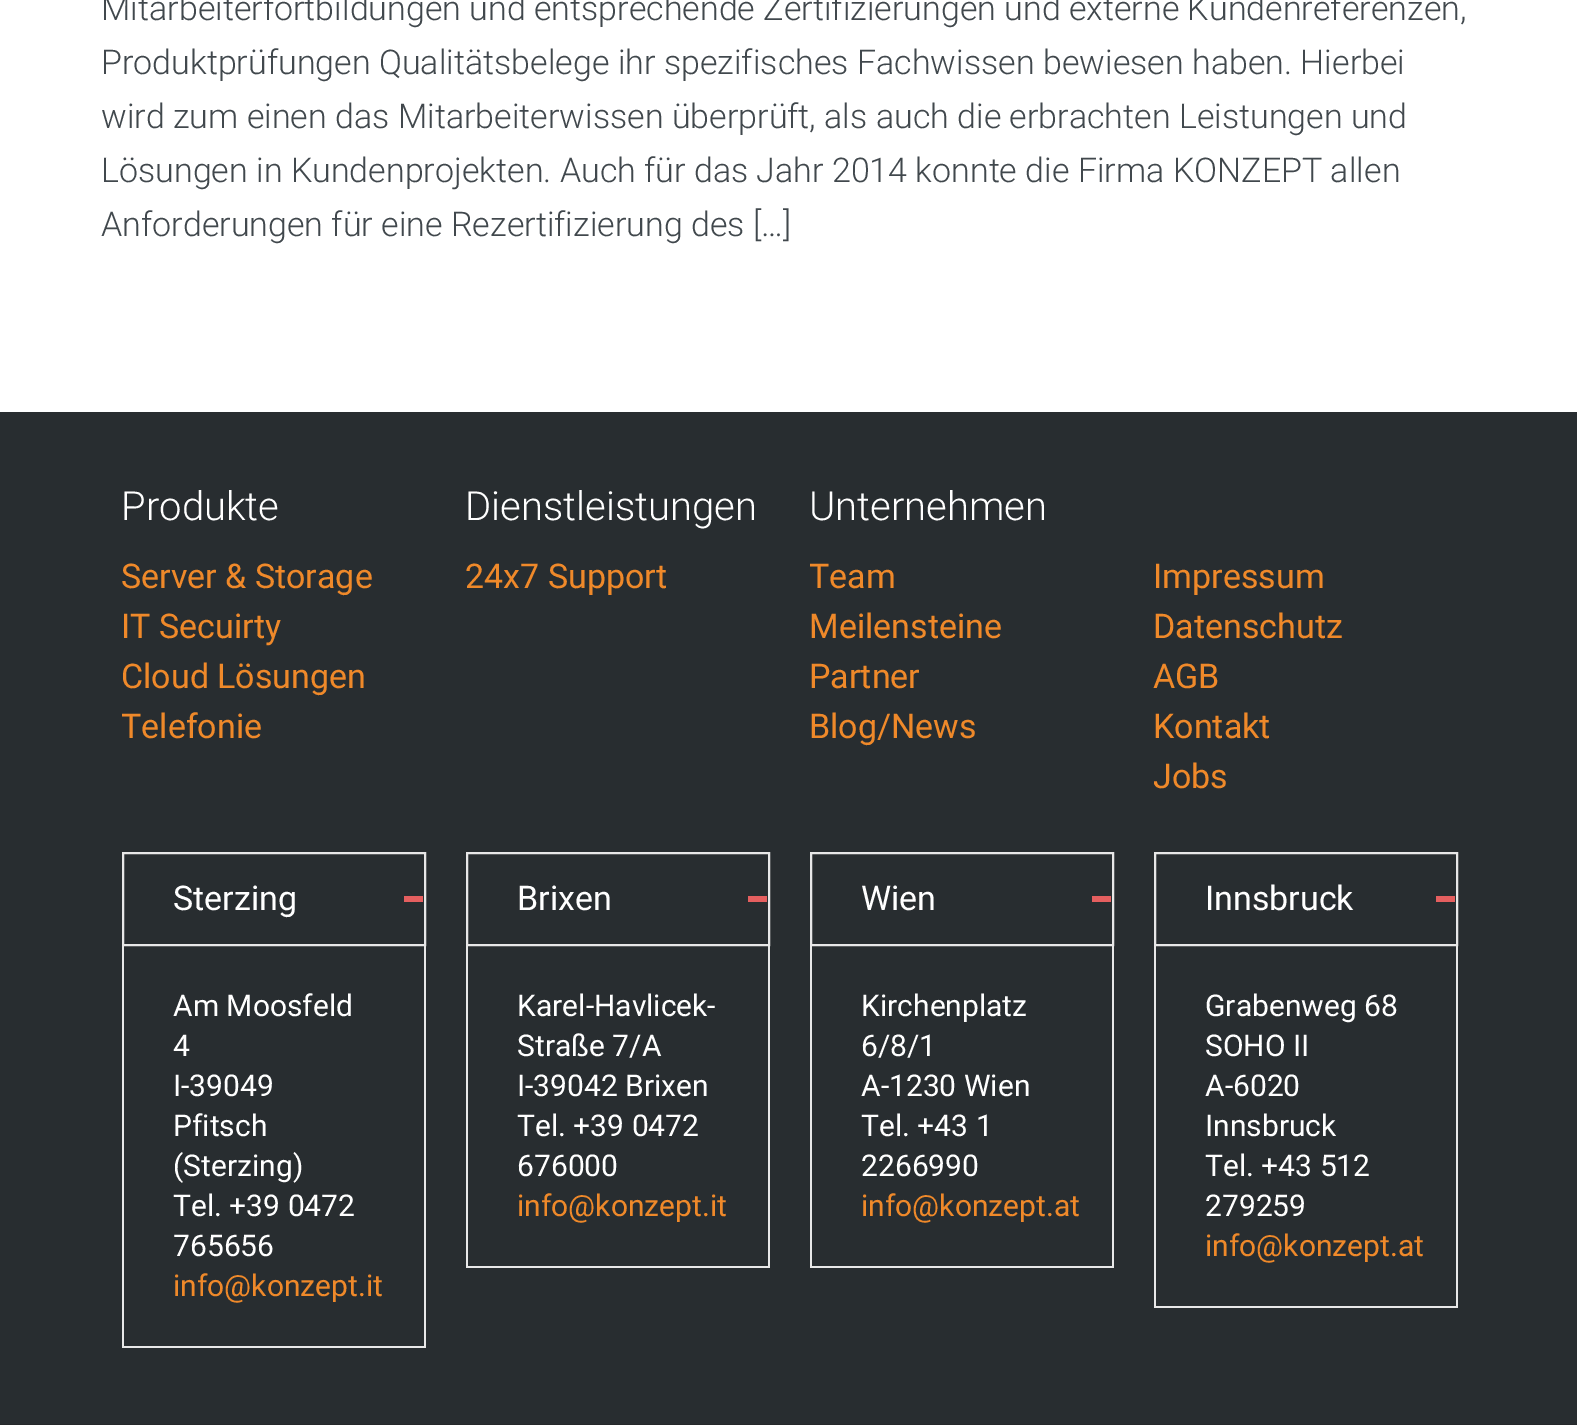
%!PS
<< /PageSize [1577 1425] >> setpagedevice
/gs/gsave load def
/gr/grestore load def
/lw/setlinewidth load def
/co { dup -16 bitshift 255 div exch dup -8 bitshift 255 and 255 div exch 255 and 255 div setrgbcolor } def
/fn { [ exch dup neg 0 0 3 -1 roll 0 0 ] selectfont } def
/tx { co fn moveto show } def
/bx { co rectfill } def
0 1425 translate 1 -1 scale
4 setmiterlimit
0 0 1577 1425 16#FFFFFF bx
0 412 1577 1012 16#282D30 bx
16#E8E8E8 co
2 lw
123 853 302 92 rectstroke
404 896 19 6 16#E55F5F bx
424 946 2 402 16#E8E8E8 bx
122 1346 304 2 16#E8E8E8 bx
122 946 2 402 16#E8E8E8 bx
467 853 302 92 rectstroke
748 896 19 6 16#E55F5F bx
768 946 2 322 16#E8E8E8 bx
466 1266 304 2 16#E8E8E8 bx
466 946 2 322 16#E8E8E8 bx
811 853 302 92 rectstroke
1092 896 19 6 16#E55F5F bx
1112 946 2 322 16#E8E8E8 bx
810 1266 304 2 16#E8E8E8 bx
810 946 2 322 16#E8E8E8 bx
1155 853 302 92 rectstroke
1436 896 19 6 16#E55F5F bx
1456 946 2 362 16#E8E8E8 bx
1154 1306 304 2 16#E8E8E8 bx
1154 946 2 362 16#E8E8E8 bx
0 1424 1577 1 16#25282A bx
(Mitarbeiterfortbildungen und entsprechende Zertifizierungen und externe Kundenreferenzen,) 101 20 /Roboto-Light 34 16#41484D tx
(Produktprüfungen Qualitätsbelege ihr spezifisches Fachwissen bewiesen haben. Hierbei) 101 74 /Roboto-Light 34 16#41484D tx
(wird zum einen das Mitarbeiterwissen überprüft, als auch die erbrachten Leistungen und) 101 128 /Roboto-Light 34 16#41484D tx
(Lösungen in Kundenprojekten. Auch für das Jahr 2014 konnte die Firma KONZEPT allen) 101 182 /Roboto-Light 34 16#41484D tx
(Anforderungen für eine Rezertifizierung des […]) 101 236 /Roboto-Light 34 16#41484D tx
(Produkte) 121 520 /Roboto-Light 40 16#FFFFFF tx
(Server & Storage) 121 588 /Roboto-Regular 34 16#EF892A tx
(IT Secuirty) 121 638 /Roboto-Regular 34 16#EF892A tx
(Cloud Lösungen) 121 688 /Roboto-Regular 34 16#EF892A tx
gs
122 488 304 320 rectclip
(Telefonie) 121 738 /Roboto-Regular 34 16#EF892A tx
gr
(Dienstleistungen) 465 520 /Roboto-Light 40 16#FFFFFF tx
(24x7 Support) 465 588 /Roboto-Regular 34 16#EF892A tx
(Unternehmen) 809 520 /Roboto-Light 40 16#FFFFFF tx
gs
810 488 304 274 rectclip
(Team) 809 588 /Roboto-Regular 34 16#EF892A tx
gr
(Meilensteine) 809 638 /Roboto-Regular 34 16#EF892A tx
(Partner) 809 688 /Roboto-Regular 34 16#EF892A tx
(Blog/News) 809 738 /Roboto-Regular 34 16#EF892A tx
(Impressum) 1153 588 /Roboto-Regular 34 16#EF892A tx
(Datenschutz) 1153 638 /Roboto-Regular 34 16#EF892A tx
(AGB) 1153 688 /Roboto-Regular 34 16#EF892A tx
(Kontakt) 1153 738 /Roboto-Regular 34 16#EF892A tx
(Jobs) 1153 788 /Roboto-Regular 34 16#EF892A tx
(Sterzing) 173 910 /Roboto-Regular 34 16#FFFFFF tx
(Am Moosfeld) 173 1016 /Roboto-Regular 30 16#FFFFFF tx
(4) 173 1056 /Roboto-Regular 30 16#FFFFFF tx
(I-39049) 173 1096 /Roboto-Regular 30 16#FFFFFF tx
(Pfitsch) 173 1136 /Roboto-Regular 30 16#FFFFFF tx
(\(Sterzing\)) 173 1176 /Roboto-Regular 30 16#FFFFFF tx
(Tel. +39 0472) 173 1216 /Roboto-Regular 30 16#FFFFFF tx
(765656) 173 1256 /Roboto-Regular 30 16#FFFFFF tx
(info@konzept.it) 173 1296 /Roboto-Regular 30 16#EF892A tx
(Brixen) 517 910 /Roboto-Regular 34 16#FFFFFF tx
(Karel-Havlicek-) 517 1016 /Roboto-Regular 30 16#FFFFFF tx
(Straße 7/A) 517 1056 /Roboto-Regular 30 16#FFFFFF tx
(I-39042 Brixen) 517 1096 /Roboto-Regular 30 16#FFFFFF tx
(Tel. +39 0472) 517 1136 /Roboto-Regular 30 16#FFFFFF tx
(676000) 517 1176 /Roboto-Regular 30 16#FFFFFF tx
(info@konzept.it) 517 1216 /Roboto-Regular 30 16#EF892A tx
(Wien) 861 910 /Roboto-Regular 34 16#FFFFFF tx
(Kirchenplatz) 861 1016 /Roboto-Regular 30 16#FFFFFF tx
(6/8/1) 861 1056 /Roboto-Regular 30 16#FFFFFF tx
(A-1230 Wien) 861 1096 /Roboto-Regular 30 16#FFFFFF tx
(Tel. +43 1) 861 1136 /Roboto-Regular 30 16#FFFFFF tx
(2266990) 861 1176 /Roboto-Regular 30 16#FFFFFF tx
(info@konzept.at) 861 1216 /Roboto-Regular 30 16#EF892A tx
(Innsbruck) 1205 910 /Roboto-Regular 34 16#FFFFFF tx
(Grabenweg 68) 1205 1016 /Roboto-Regular 30 16#FFFFFF tx
(SOHO II) 1205 1056 /Roboto-Regular 30 16#FFFFFF tx
(A-6020) 1205 1096 /Roboto-Regular 30 16#FFFFFF tx
(Innsbruck) 1205 1136 /Roboto-Regular 30 16#FFFFFF tx
(Tel. +43 512) 1205 1176 /Roboto-Regular 30 16#FFFFFF tx
(279259) 1205 1216 /Roboto-Regular 30 16#FFFFFF tx
(info@konzept.at) 1205 1256 /Roboto-Regular 30 16#EF892A tx
showpage
